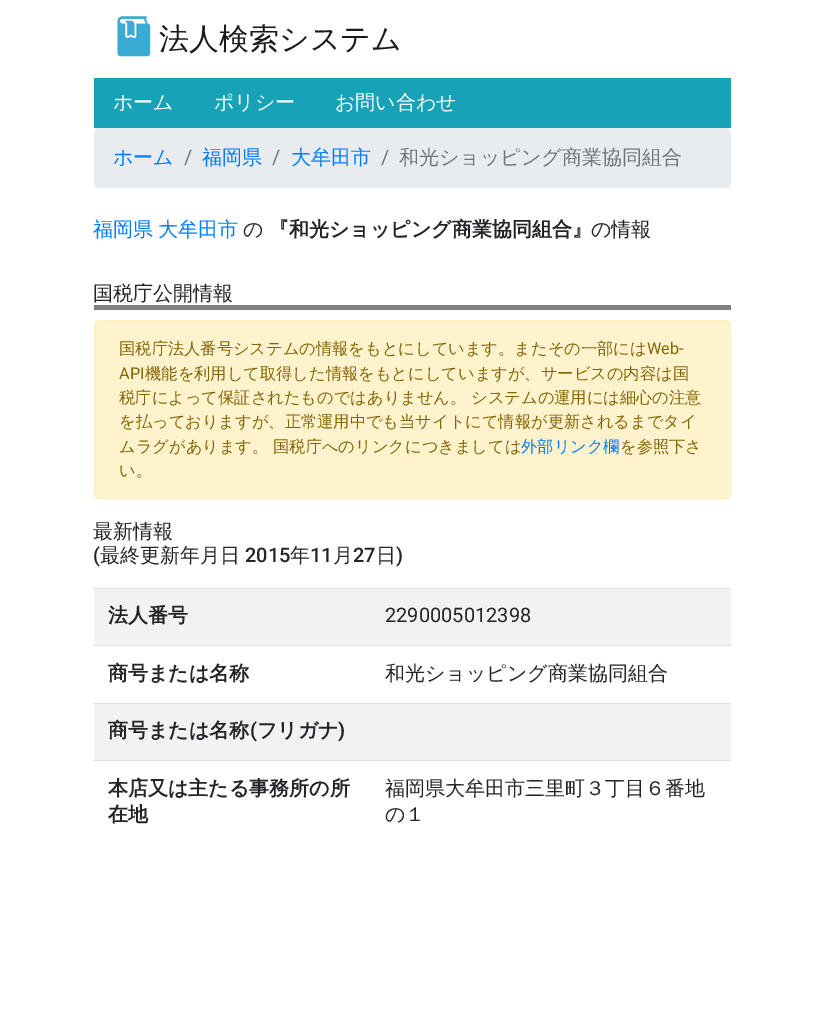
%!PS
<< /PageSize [823 1024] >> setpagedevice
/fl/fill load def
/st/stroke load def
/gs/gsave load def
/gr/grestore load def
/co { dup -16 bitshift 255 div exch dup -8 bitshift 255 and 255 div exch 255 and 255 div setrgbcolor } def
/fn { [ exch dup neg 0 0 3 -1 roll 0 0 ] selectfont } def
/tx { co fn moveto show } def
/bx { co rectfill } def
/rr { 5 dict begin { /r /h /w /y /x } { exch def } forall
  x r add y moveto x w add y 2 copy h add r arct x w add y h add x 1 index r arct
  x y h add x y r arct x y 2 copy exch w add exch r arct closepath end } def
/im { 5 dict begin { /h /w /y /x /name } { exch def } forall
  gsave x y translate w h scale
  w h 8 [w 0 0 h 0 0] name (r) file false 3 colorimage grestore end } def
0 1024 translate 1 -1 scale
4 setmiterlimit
0 0 823 1024 16#FFFFFF bx
(media/1.raw) 117 16 34 41 im
94 78 637 50 16#17A2B8 bx
16#E9ECEF co
94 128 637 60 5 rr fl
94 305 637 5 16#808080 bx
16#FFF3CD co
94.5 320.5 636 178 4.5 rr gs fl gr
16#FFEEBA co
st
94 589 637 56 16#F2F2F2 bx
93 588 638 1 16#DEE2E6 bx
93 645 638 1 16#DEE2E6 bx
94 704 637 56 16#F2F2F2 bx
93 703 638 1 16#DEE2E6 bx
93 760 638 1 16#DEE2E6 bx
(法人検索システム) 159 49 /WenQuanYiZenHei-Medium 30 16#1A1A1A tx
(ホーム) 113 109 /WenQuanYiZenHei-Medium 20 16#FFFFFF tx
(ポリシー) 214 109 /WenQuanYiZenHei-Medium 20 16#FFFFFF tx
(お問い合わせ) 335 109 /WenQuanYiZenHei-Medium 20 16#FFFFFF tx
(ホーム) 113 164 /WenQuanYiZenHei-Medium 20 16#007BFF tx
(/) 184 164 /Roboto-Regular 20 16#6C757D tx
(福岡県) 202 164 /WenQuanYiZenHei-Medium 20 16#007BFF tx
(/) 272 164 /Roboto-Regular 20 16#6C757D tx
(大牟田市) 291 164 /WenQuanYiZenHei-Medium 20 16#007BFF tx
(/) 381 164 /Roboto-Regular 20 16#6C757D tx
(和光ショッピング商業協同組合) 399 164 /WenQuanYiZenHei-Medium 20 16#6C757D tx
(福岡県) 93 236 /WenQuanYiZenHei-Medium 20 16#007BFF tx
(大牟田市) 158 236 /WenQuanYiZenHei-Medium 20 16#007BFF tx
(の) 243 236 /WenQuanYiZenHei-Medium 20 16#212529 tx
(『和光ショッピング商業協同組合』) 269 236 /WenQuanYiZenHei-Bold 20 16#212529 tx
(の情報) 591 236 /WenQuanYiZenHei-Medium 20 16#212529 tx
(国税庁公開情報) 93 300 /WenQuanYiZenHei-Medium 20 16#212529 tx
(国税庁法人番号システムの情報をもとにしています。またその一部には) 119 354 /WenQuanYiZenHei-Medium 16.25 16#856404 tx
(Web-) 647 354 /Roboto-Regular 16.25 16#856404 tx
(API) 119 379 /Roboto-Regular 16.25 16#856404 tx
(機能を利用して取得した情報をもとにしていますが、サービスの内容は国) 145 379 /WenQuanYiZenHei-Medium 16.25 16#856404 tx
(税庁によって保証されたものではありません。) 119 403 /WenQuanYiZenHei-Medium 16.25 16#856404 tx
(システムの運用には細心の注意) 471 403 /WenQuanYiZenHei-Medium 16.25 16#856404 tx
(を払っておりますが、正常運用中でも当サイトにて情報が更新されるまでタイ) 119 427 /WenQuanYiZenHei-Medium 16.25 16#856404 tx
(ムラグがあります。) 119 452 /WenQuanYiZenHei-Medium 16.25 16#856404 tx
(国税庁へのリンクにつきましては) 273 452 /WenQuanYiZenHei-Medium 16.25 16#856404 tx
(外部リンク欄) 521 452 /WenQuanYiZenHei-Medium 16.25 16#007BFF tx
(を参照下さ) 620 452 /WenQuanYiZenHei-Medium 16.25 16#856404 tx
(い。) 119 476 /WenQuanYiZenHei-Medium 16.25 16#856404 tx
(最新情報) 93 538 /WenQuanYiZenHei-Medium 20 16#212529 tx
(\() 93 562 /Roboto-Medium 20 16#212529 tx
(最終更新年月日) 100 562 /WenQuanYiZenHei-Medium 20 16#212529 tx
(2015) 245 562 /Roboto-Medium 20 16#212529 tx
(年) 290 562 /WenQuanYiZenHei-Medium 20 16#212529 tx
(11) 310 562 /Roboto-Medium 20 16#212529 tx
(月) 333 562 /WenQuanYiZenHei-Medium 20 16#212529 tx
(27) 353 562 /Roboto-Medium 20 16#212529 tx
(日) 376 562 /WenQuanYiZenHei-Medium 20 16#212529 tx
(\)) 396 562 /Roboto-Medium 20 16#212529 tx
(法人番号) 108 622 /WenQuanYiZenHei-Bold 20 16#212529 tx
(2290005012398) 385 622 /Roboto-Regular 20 16#212529 tx
(商号または名称) 108 680 /WenQuanYiZenHei-Bold 20 16#212529 tx
(和光ショッピング商業協同組合) 385 680 /WenQuanYiZenHei-Medium 20 16#212529 tx
(商号または名称) 108 737 /WenQuanYiZenHei-Bold 20 16#212529 tx
(\() 250 737 /Roboto-Bold 20 16#212529 tx
(フリガナ) 257 737 /WenQuanYiZenHei-Bold 20 16#212529 tx
(\)) 338 737 /Roboto-Bold 20 16#212529 tx
(本店又は主たる事務所の所) 108 795 /WenQuanYiZenHei-Bold 20 16#212529 tx
(在地) 108 821 /WenQuanYiZenHei-Bold 20 16#212529 tx
(福岡県大牟田市三里町３丁目６番地) 385 795 /WenQuanYiZenHei-Medium 20 16#212529 tx
(の１) 385 821 /WenQuanYiZenHei-Medium 20 16#212529 tx
showpage
